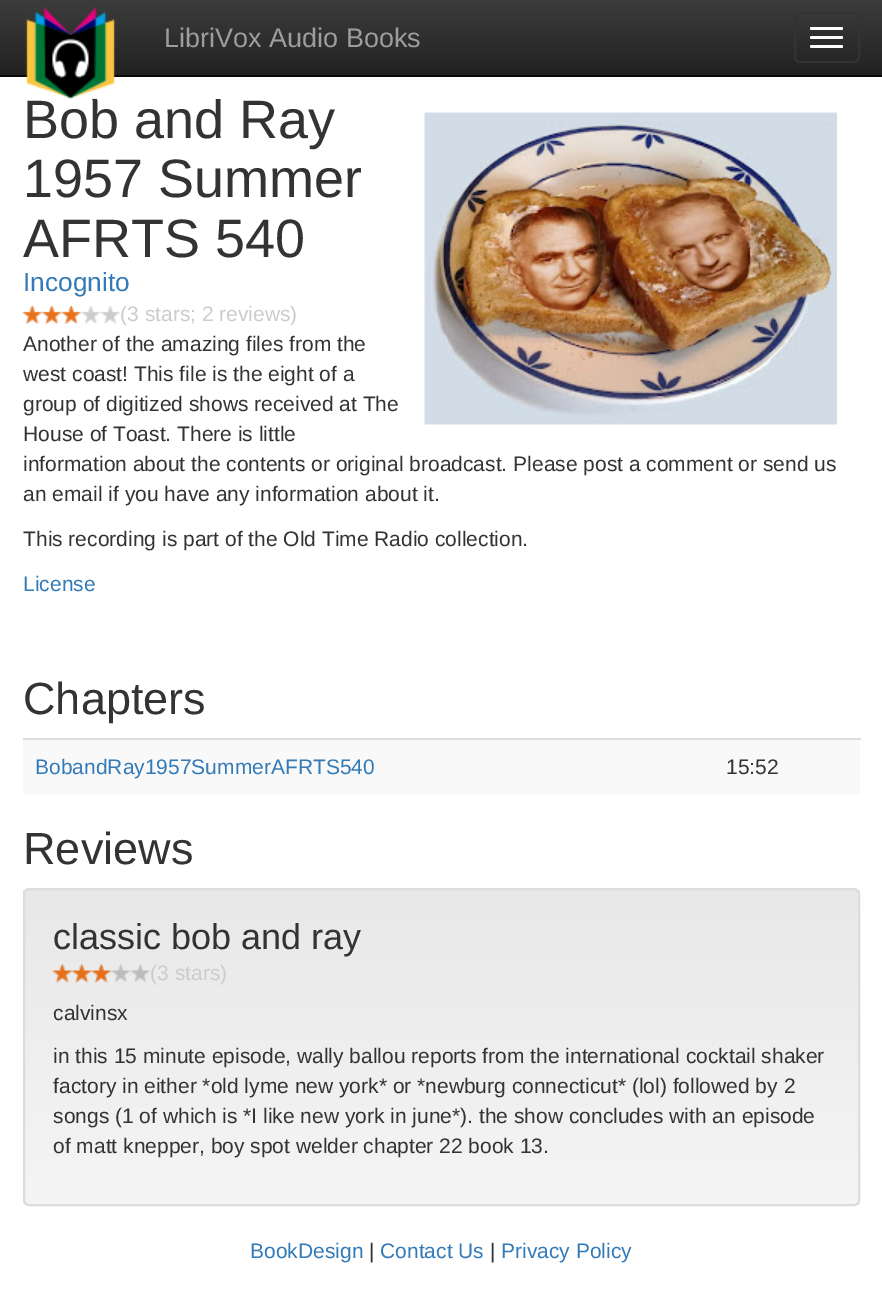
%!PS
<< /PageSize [882 1311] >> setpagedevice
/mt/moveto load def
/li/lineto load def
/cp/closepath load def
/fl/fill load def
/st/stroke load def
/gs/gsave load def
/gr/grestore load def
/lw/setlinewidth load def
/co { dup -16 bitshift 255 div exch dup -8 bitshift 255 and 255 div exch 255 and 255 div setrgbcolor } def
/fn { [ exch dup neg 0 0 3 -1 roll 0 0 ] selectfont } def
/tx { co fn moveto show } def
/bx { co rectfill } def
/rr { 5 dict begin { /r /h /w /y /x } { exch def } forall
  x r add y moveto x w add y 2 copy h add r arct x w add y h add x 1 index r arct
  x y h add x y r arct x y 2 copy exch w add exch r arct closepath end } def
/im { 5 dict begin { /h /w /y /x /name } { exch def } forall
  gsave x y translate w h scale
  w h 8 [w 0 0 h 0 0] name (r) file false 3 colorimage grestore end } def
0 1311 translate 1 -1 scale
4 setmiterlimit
0 0 882 1311 16#FFFFFF bx
gs 0 0 mt 882 0 li 882 75 li 0 75 li cp clip newpath
<< /ShadingType 2 /ColorSpace /DeviceRGB /Coords [441 0 441 75] /Extend [true true] /Function << /FunctionType 2 /Domain [0 1] /C0 [.235 .235 .235] /C1 [.133 .133 .133] /N 1 >> >> shfill gr
0 75 882 2 16#080808 bx
16#333333 co
2 lw
795 13 64 49 5 rr st
16#FFFFFF co
810 27 33 3 1.5 rr fl
810 36 33 3 1.5 rr fl
810 45 33 3 1.5 rr fl
(media/2.raw) 424 112 413 313 im
(media/3.raw) 22 306 20 18 im
(media/4.raw) 42 306 20 18 im
(media/5.raw) 61 306 20 18 im
(media/6.raw) 81 306 20 18 im
(media/7.raw) 100 306 20 18 im
23 740 837 54 16#F9F9F9 bx
23 738 838 2 16#DDDDDD bx
gs
23 888 837 318 6 rr clip newpath
gs 23 890 mt 860 890 li 860 1205 li 23 1205 li cp clip newpath
<< /ShadingType 2 /ColorSpace /DeviceRGB /Coords [441 890 441 1205] /Extend [true true] /Function << /FunctionType 2 /Domain [0 1] /C0 [.91 .91 .91] /C1 [.961 .961 .961] /N 1 >> >> shfill gr
gr
16#DCDCDC co
24 889 835 316 5 rr st
(media/8.raw) 52 964 20 19 im
(media/9.raw) 72 964 20 19 im
(media/10.raw) 91 964 20 19 im
(media/11.raw) 111 964 20 18 im
(media/12.raw) 130 964 20 19 im
(LibriVox Audio Books) 164 47 /LiberationSans-Regular 27 16#9D9D9D tx
(Bob and Ray) 23 138 /LiberationSans-Regular 54 16#333333 tx
(media/1.raw) 25 7 91 93 im
(1957 Summer) 23 197 /LiberationSans-Regular 54 16#333333 tx
(AFRTS 540) 23 257 /LiberationSans-Regular 54 16#333333 tx
(Incognito) 23 291 /LiberationSans-Regular 26.25 16#337AB7 tx
(\(3 stars; 2 reviews\)) 120 321 /LiberationSans-Regular 21 16#CCCCCC tx
(Another of the amazing files from the) 23 351 /LiberationSans-Regular 21 16#333333 tx
(west coast! This file is the eight of a) 23 381 /LiberationSans-Regular 21 16#333333 tx
(group of digitized shows received at The) 23 411 /LiberationSans-Regular 21 16#333333 tx
(House of Toast. There is little) 23 441 /LiberationSans-Regular 21 16#333333 tx
(information about the contents or original broadcast. Please post a comment or send us) 23 471 /LiberationSans-Regular 21 16#333333 tx
(an email if you have any information about it.) 23 501 /LiberationSans-Regular 21 16#333333 tx
(This recording is part of the Old Time Radio collection.) 23 546 /LiberationSans-Regular 21 16#333333 tx
(License) 23 591 /LiberationSans-Regular 21 16#337AB7 tx
(Chapters) 23 714 /LiberationSans-Regular 45 16#333333 tx
(BobandRay1957SummerAFRTS540) 35 774 /LiberationSans-Regular 21 16#337AB7 tx
(15:52) 726 774 /LiberationSans-Regular 21 16#333333 tx
(Reviews) 23 864 /LiberationSans-Regular 45 16#333333 tx
(classic bob and ray) 53 949 /LiberationSans-Regular 36 16#333333 tx
(\(3 stars\)) 150 980 /LiberationSans-Regular 21 16#CCCCCC tx
(calvinsx) 53 1020 /LiberationSans-Regular 21 16#333333 tx
(in this 15 minute episode, wally ballou reports from the international cocktail shaker) 53 1063 /LiberationSans-Regular 21 16#333333 tx
(factory in either *old lyme new york* or *newburg connecticut* \(lol\) followed by 2) 53 1093 /LiberationSans-Regular 21 16#333333 tx
(songs \(1 of which is *I like new york in june*\). the show concludes with an episode) 53 1123 /LiberationSans-Regular 21 16#333333 tx
(of matt knepper, boy spot welder chapter 22 book 13.) 53 1153 /LiberationSans-Regular 21 16#333333 tx
(BookDesign) 250 1258 /LiberationSans-Regular 21 16#337AB7 tx
(|) 369 1258 /LiberationSans-Regular 21 16#333333 tx
(Contact Us) 380 1258 /LiberationSans-Regular 21 16#337AB7 tx
(|) 490 1258 /LiberationSans-Regular 21 16#333333 tx
(Privacy Policy) 501 1258 /LiberationSans-Regular 21 16#337AB7 tx
showpage
